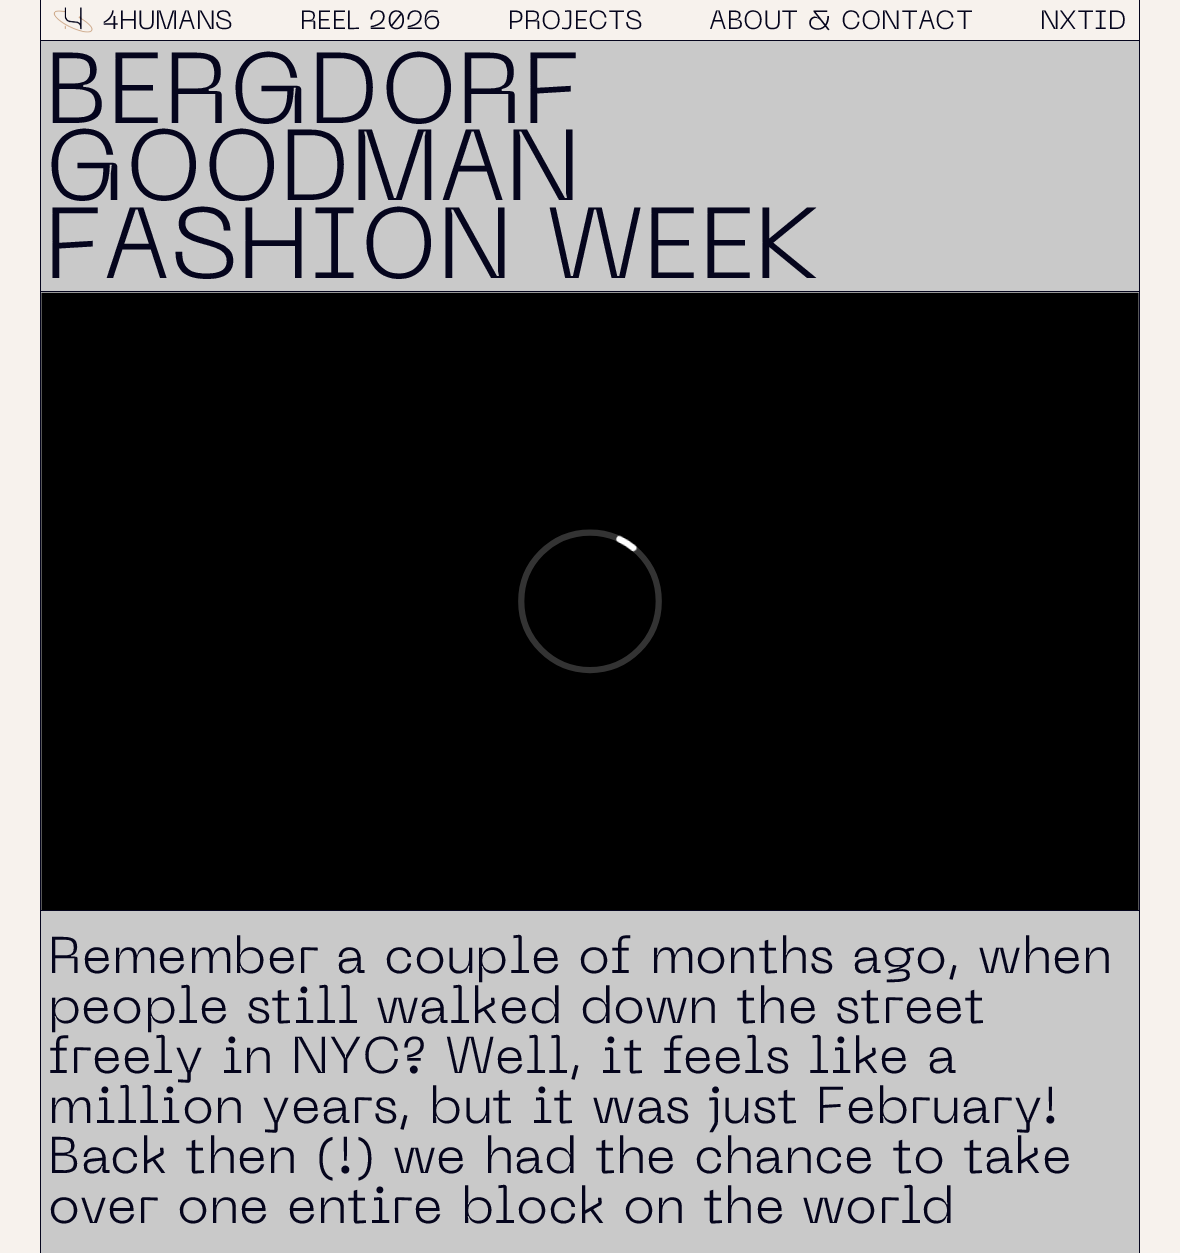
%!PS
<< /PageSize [1180 1253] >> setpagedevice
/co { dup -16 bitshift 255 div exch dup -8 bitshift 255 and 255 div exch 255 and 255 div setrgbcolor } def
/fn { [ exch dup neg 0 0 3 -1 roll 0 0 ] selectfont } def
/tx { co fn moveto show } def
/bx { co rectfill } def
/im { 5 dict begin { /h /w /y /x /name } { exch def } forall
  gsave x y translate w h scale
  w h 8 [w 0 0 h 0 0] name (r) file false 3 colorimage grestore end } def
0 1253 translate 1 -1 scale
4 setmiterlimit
0 0 1180 1253 16#F7F2ED bx
40 0 1 1253 16#05051D bx
41 40 1098 1 16#05051D bx
(media/1.raw) 53 7 40 26 im
41 41 1098 1212 16#C9C9C9 bx
41 291 1098 1 16#05051D bx
41 910 1098 1 16#05051D bx
(media/2.raw) 41 292 1098 618 im
1139 0 1 1253 16#05051D bx
(4HUMANS) 102 29 /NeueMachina-Light 26.25 16#05051D tx
(REEL 2026) 300 29 /NeueMachina-Light 26.25 16#05051D tx
(PROJECTS) 508 29 /NeueMachina-Light 26.25 16#05051D tx
(ABOUT & CONTACT) 709 29 /NeueMachina-Light 26.25 16#05051D tx
(NXTID) 1040 29 /NeueMachina-Light 26.25 16#05051D tx
(BERGDORF) 45 123 /NeueMachina-Light 100 16#05051D tx
(GOODMAN) 45 200 /NeueMachina-Light 100 16#05051D tx
(FASHION WEEK) 45 278 /NeueMachina-Light 100 16#05051D tx
(Remember a couple of months ago, when) 48 973 /NeueMachina-Light 51.25 16#05051D tx
(people still walked down the street) 48 1023 /NeueMachina-Light 51.25 16#05051D tx
(freely in NYC? Well, it feels like a) 48 1073 /NeueMachina-Light 51.25 16#05051D tx
(million years, but it was just February!) 48 1123 /NeueMachina-Light 51.25 16#05051D tx
(Back then \(!\) we had the chance to take) 48 1173 /NeueMachina-Light 51.25 16#05051D tx
(over one entire block on the world) 48 1223 /NeueMachina-Light 51.25 16#05051D tx
showpage
